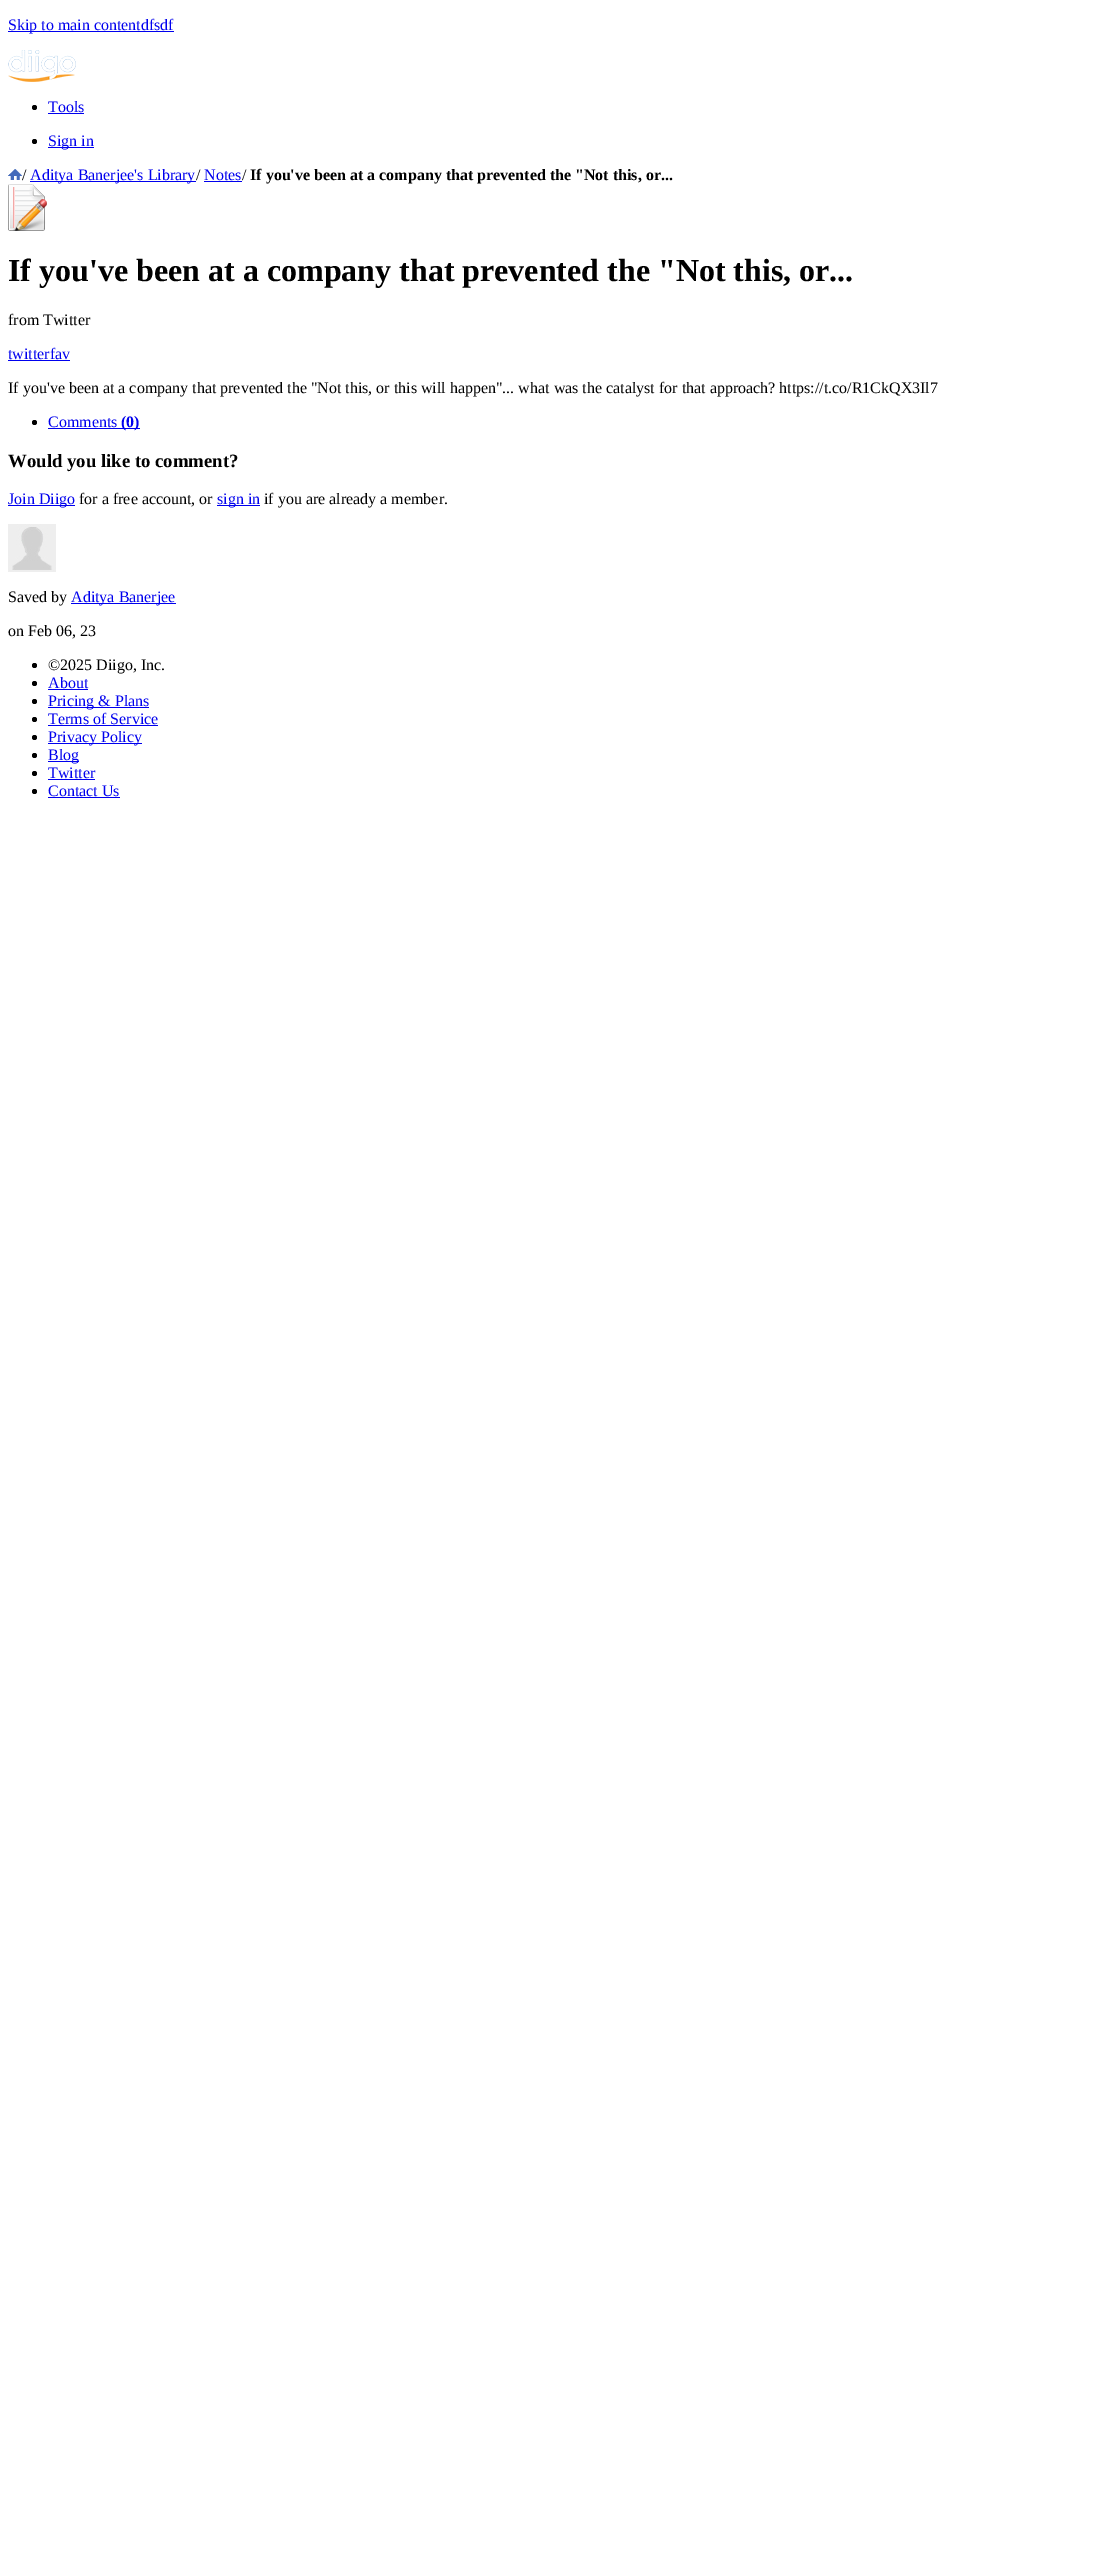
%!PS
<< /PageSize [1098 2560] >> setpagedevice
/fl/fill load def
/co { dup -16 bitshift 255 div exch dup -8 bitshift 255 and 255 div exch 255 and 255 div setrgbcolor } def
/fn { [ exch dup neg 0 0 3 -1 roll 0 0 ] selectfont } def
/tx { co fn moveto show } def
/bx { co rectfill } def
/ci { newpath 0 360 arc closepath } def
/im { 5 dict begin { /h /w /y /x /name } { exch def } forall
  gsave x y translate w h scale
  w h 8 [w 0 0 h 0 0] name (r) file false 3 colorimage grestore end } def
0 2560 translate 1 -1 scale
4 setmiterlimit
0 0 1098 2560 16#FFFFFF bx
8 31 166 1 16#0000EE bx
(media/1.raw) 8 50 68 32 im
16#000000 co
34.5 107.5 2.5 ci fl
48 113 36 1 16#0000EE bx
16#000000 co
34.5 141.5 2.5 ci fl
48 147 46 1 16#0000EE bx
(media/2.raw) 8 169 14 11 im
30 181 166 1 16#0000EE bx
204 181 38 1 16#0000EE bx
(media/3.raw) 8 184 39 47 im
8 360 62 1 16#0000EE bx
16#000000 co
34.5 422.5 2.5 ci fl
48 428 92 1 16#0000EE bx
8 505 67 1 16#0000EE bx
217 505 43 1 16#0000EE bx
(media/4.raw) 8 524 48 48 im
71 603 105 1 16#0000EE bx
16#000000 co
34.5 665.5 2.5 ci fl
34.5 683.5 2.5 ci fl
48 689 40 1 16#0000EE bx
16#000000 co
34.5 701.5 2.5 ci fl
48 707 101 1 16#0000EE bx
16#000000 co
34.5 719.5 2.5 ci fl
48 725 110 1 16#0000EE bx
16#000000 co
34.5 737.5 2.5 ci fl
48 743 94 1 16#0000EE bx
16#000000 co
34.5 755.5 2.5 ci fl
48 761 31 1 16#0000EE bx
16#000000 co
34.5 773.5 2.5 ci fl
48 779 47 1 16#0000EE bx
16#000000 co
34.5 791.5 2.5 ci fl
48 797 72 1 16#0000EE bx
(Skip to main contentdfsdf) 8 30 /LiberationSerif-Regular 16 16#0000EE tx
(Tools) 48 112 /LiberationSerif-Regular 16 16#0000EE tx
(Sign in) 48 146 /LiberationSerif-Regular 16 16#0000EE tx
(/) 22 180 /LiberationSerif-Regular 16 16#000000 tx
(Aditya Banerjee's Library) 30 180 /LiberationSerif-Regular 16 16#0000EE tx
(/) 196 180 /LiberationSerif-Regular 16 16#000000 tx
(Notes) 204 180 /LiberationSerif-Regular 16 16#0000EE tx
(/) 242 180 /LiberationSerif-Regular 16 16#000000 tx
(If you've been at a company that prevented the "Not this, or...) 250 180 /LiberationSerif-Bold 16 16#000000 tx
(If you've been at a company that prevented the "Not this, or...) 8 281 /LiberationSerif-Bold 32 16#000000 tx
(from Twitter) 8 325 /LiberationSerif-Regular 16 16#000000 tx
(twitterfav) 8 359 /LiberationSerif-Regular 16 16#0000EE tx
(If you've been at a company that prevented the "Not this, or this will happen"... what was the catalyst for that approach? https://t.co/R1CkQX3Il7) 8 393 /LiberationSerif-Regular 16 16#000000 tx
(Comments) 48 427 /LiberationSerif-Regular 16 16#0000EE tx
(\(0\)) 121 427 /LiberationSerif-Bold 16 16#0000EE tx
(Would you like to comment?) 8 467 /LiberationSerif-Bold 18.75 16#000000 tx
(Join Diigo) 8 504 /LiberationSerif-Regular 16 16#0000EE tx
(for a free account, or) 79 504 /LiberationSerif-Regular 16 16#000000 tx
(sign in) 217 504 /LiberationSerif-Regular 16 16#0000EE tx
(if you are already a member.) 264 504 /LiberationSerif-Regular 16 16#000000 tx
(Saved by) 8 602 /LiberationSerif-Regular 16 16#000000 tx
(Aditya Banerjee) 71 602 /LiberationSerif-Regular 16 16#0000EE tx
(on Feb 06, 23) 8 636 /LiberationSerif-Regular 16 16#000000 tx
(©2025 Diigo, Inc.) 48 670 /LiberationSerif-Regular 16 16#000000 tx
(About) 48 688 /LiberationSerif-Regular 16 16#0000EE tx
(Pricing & Plans) 48 706 /LiberationSerif-Regular 16 16#0000EE tx
(Terms of Service) 48 724 /LiberationSerif-Regular 16 16#0000EE tx
(Privacy Policy) 48 742 /LiberationSerif-Regular 16 16#0000EE tx
(Blog) 48 760 /LiberationSerif-Regular 16 16#0000EE tx
(Twitter) 48 778 /LiberationSerif-Regular 16 16#0000EE tx
(Contact Us) 48 796 /LiberationSerif-Regular 16 16#0000EE tx
showpage
